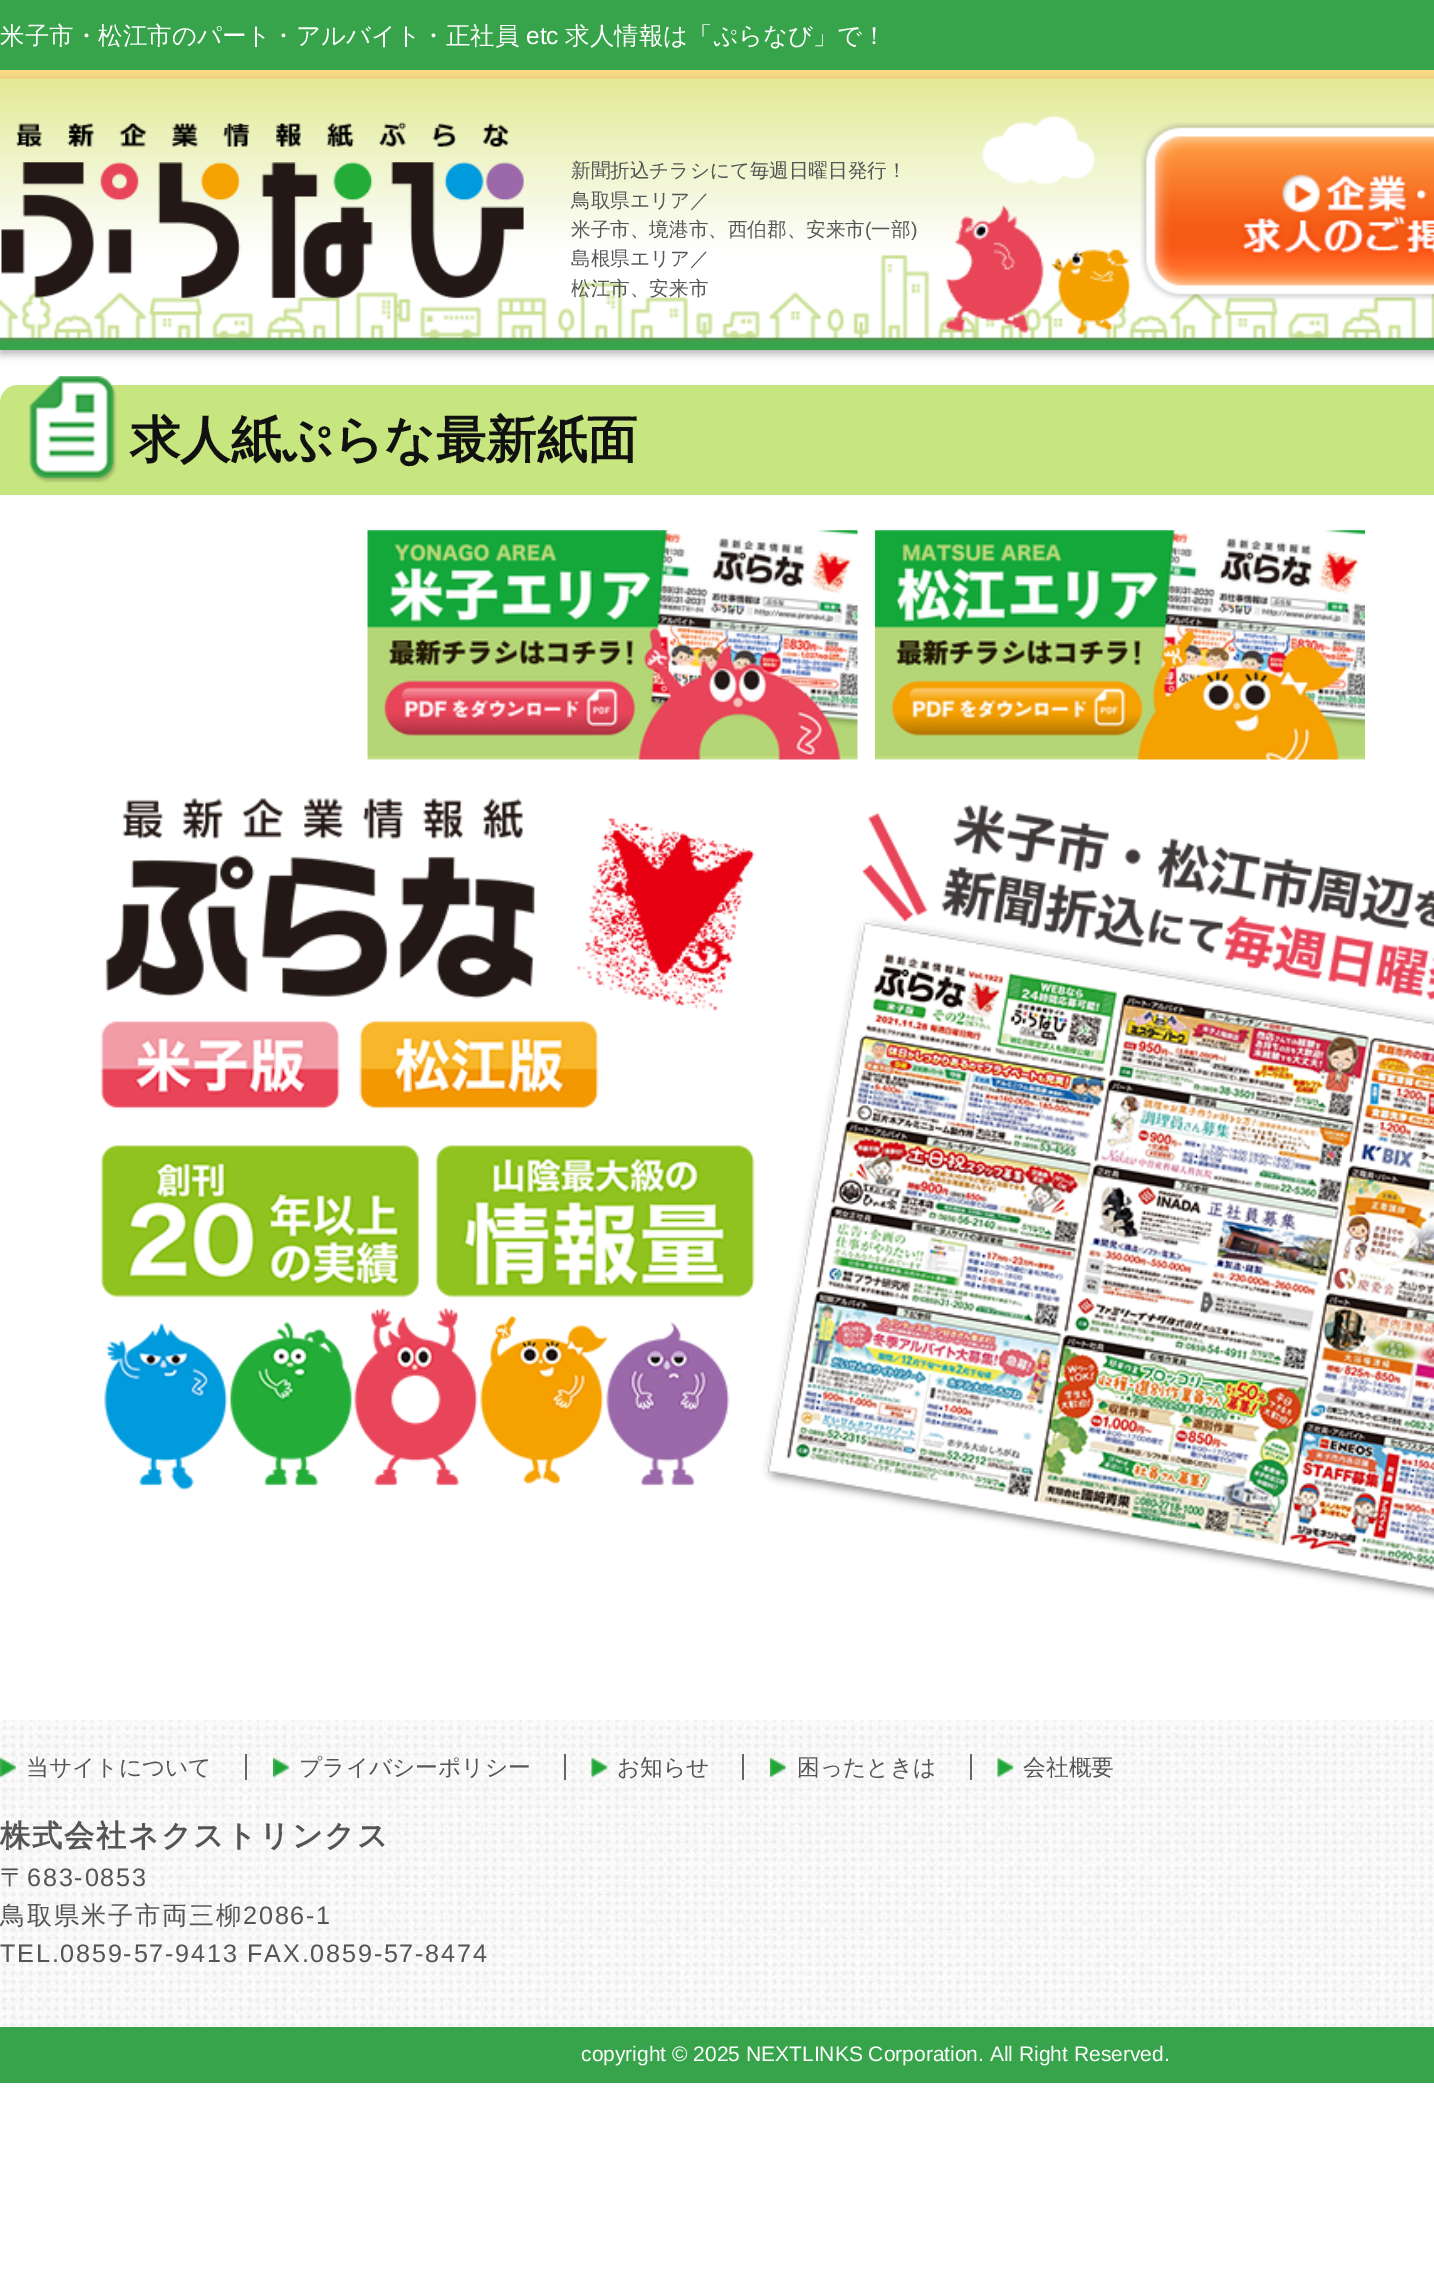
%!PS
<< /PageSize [1434 2269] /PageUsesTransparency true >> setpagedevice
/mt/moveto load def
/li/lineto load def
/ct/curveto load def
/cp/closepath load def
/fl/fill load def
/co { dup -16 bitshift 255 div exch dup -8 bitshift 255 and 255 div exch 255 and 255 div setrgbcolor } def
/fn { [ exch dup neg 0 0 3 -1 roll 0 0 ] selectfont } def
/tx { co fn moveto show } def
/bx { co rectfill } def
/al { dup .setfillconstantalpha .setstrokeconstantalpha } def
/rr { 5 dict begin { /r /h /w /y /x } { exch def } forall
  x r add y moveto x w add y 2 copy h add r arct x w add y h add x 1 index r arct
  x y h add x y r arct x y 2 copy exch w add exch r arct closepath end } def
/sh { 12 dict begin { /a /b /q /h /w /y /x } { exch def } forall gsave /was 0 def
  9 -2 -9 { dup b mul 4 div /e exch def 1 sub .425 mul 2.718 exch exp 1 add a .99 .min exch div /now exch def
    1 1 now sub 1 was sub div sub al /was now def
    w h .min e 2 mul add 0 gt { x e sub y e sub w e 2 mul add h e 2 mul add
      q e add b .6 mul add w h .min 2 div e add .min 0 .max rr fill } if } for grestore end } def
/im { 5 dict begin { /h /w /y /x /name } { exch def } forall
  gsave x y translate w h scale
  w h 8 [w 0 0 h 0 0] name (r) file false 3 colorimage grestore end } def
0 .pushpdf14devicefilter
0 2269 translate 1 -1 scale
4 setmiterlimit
0 0 1434 2269 16#FFFFFF bx
0 0 1434 70 16#37A34A bx
0 70 1434 9 16#F9DA85 bx
16#000000 co
0 82 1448 272 0 4.5 .3 sh
(media/1.raw) 0 78 1434 263 im
0 341 1434 9 16#37A34A bx
(media/2.raw) 1 122 523 177 im
(media/3.raw) 1140 122 294 178 im
16#C7E67F co
18 385 mt 1434 385 li 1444 385 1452 393 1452 403 ct 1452 495 li 0 495 li 0 403 li 0 393 8 385 18 385 ct cp fl
(media/4.raw) 29 376 88 107 im
(media/5.raw) 367 530 491 230 im
(media/6.raw) 875 530 490 230 im
(media/7.raw) 100 798 1334 802 im
(media/8.raw) 0 1720 1434 307 im
(media/9.raw) 0 1757 16 21 im
(media/10.raw) 273 1757 16 21 im
245 1754 2 26 16#666666 bx
(media/11.raw) 591 1757 17 21 im
564 1754 2 26 16#666666 bx
(media/12.raw) 770 1757 16 21 im
742 1754 2 26 16#666666 bx
(media/13.raw) 997 1757 17 21 im
970 1754 2 26 16#666666 bx
0 2027 1434 56 16#37A34A bx
(米子市・松江市のパート・アルバイト・正社員) 0 44 /WenQuanYiZenHei-Medium 24.5 16#FFFFFF tx
(etc) 526 44 /LiberationSans-Regular 24.5 16#FFFFFF tx
(求人情報は「ぷらなび」で！) 565 44 /WenQuanYiZenHei-Medium 24.5 16#FFFFFF tx
(新聞折込チラシにて毎週日曜日発行！) 571 177 /WenQuanYiZenHei-Medium 19.6 16#555555 tx
(鳥取県エリア／) 571 207 /WenQuanYiZenHei-Medium 19.6 16#555555 tx
(米子市、境港市、西伯郡、安来市) 571 236 /WenQuanYiZenHei-Medium 19.6 16#555555 tx
(\() 865 236 /LiberationSans-Regular 19.6 16#555555 tx
(一部) 871 236 /WenQuanYiZenHei-Medium 19.6 16#555555 tx
(\)) 911 236 /LiberationSans-Regular 19.6 16#555555 tx
(島根県エリア／) 571 265 /WenQuanYiZenHei-Medium 19.6 16#555555 tx
(松江市、安来市) 571 295 /WenQuanYiZenHei-Medium 19.6 16#555555 tx
(求人紙ぷらな最新紙面) 130 457 /WenQuanYiZenHei-Bold 50.4 16#111111 tx
(当サイトについて) 26 1775 /WenQuanYiZenHei-Medium 22.75 16#555555 tx
(プライバシーポリシー) 299 1775 /WenQuanYiZenHei-Medium 22.75 16#555555 tx
(お知らせ) 617 1775 /WenQuanYiZenHei-Medium 22.75 16#555555 tx
(困ったときは) 797 1775 /WenQuanYiZenHei-Medium 22.75 16#555555 tx
(会社概要) 1023 1775 /WenQuanYiZenHei-Medium 22.75 16#555555 tx
/WenQuanYiZenHei-Bold 30.25 fn
0 1846 mt 1.75 0 (株式会社ネクストリンクス) ashow
/WenQuanYiZenHei-Medium 25.25 fn
0 1886 mt 1.75 0 (〒) ashow
/LiberationSans-Regular 25.25 fn
27 1886 mt 1.75 0 (683-0853) ashow
/WenQuanYiZenHei-Medium 25.25 fn
0 1924 mt 1.75 0 (鳥取県米子市両三柳) ashow
/LiberationSans-Regular 25.25 fn
243 1924 mt 1.75 0 (2086-1) ashow
0 1962 mt 1.75 0 (TEL.0859-57-9413 FAX.0859-57-8474) ashow
(copyright © 2025 NEXTLINKS Corporation. All Right Reserved.) 581 2061 /LiberationSans-Regular 21 16#FFFFFF tx
.poppdf14devicefilter showpage
